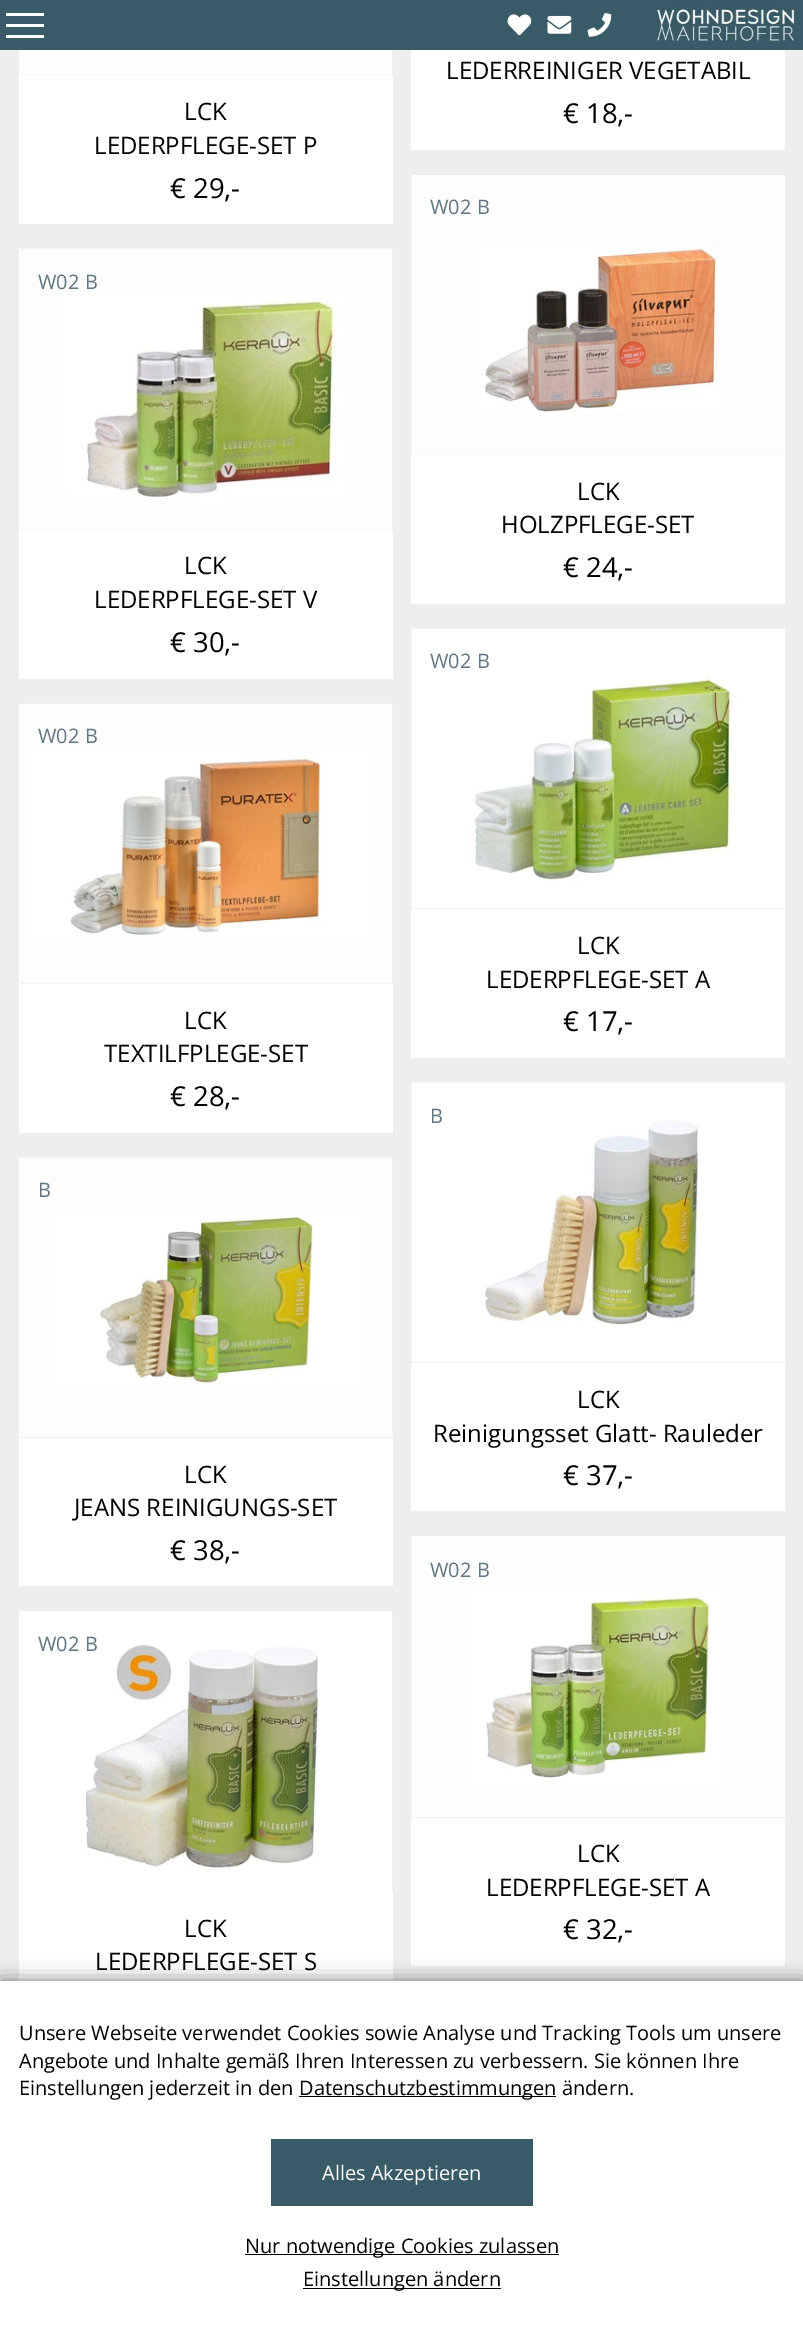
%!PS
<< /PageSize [803 2329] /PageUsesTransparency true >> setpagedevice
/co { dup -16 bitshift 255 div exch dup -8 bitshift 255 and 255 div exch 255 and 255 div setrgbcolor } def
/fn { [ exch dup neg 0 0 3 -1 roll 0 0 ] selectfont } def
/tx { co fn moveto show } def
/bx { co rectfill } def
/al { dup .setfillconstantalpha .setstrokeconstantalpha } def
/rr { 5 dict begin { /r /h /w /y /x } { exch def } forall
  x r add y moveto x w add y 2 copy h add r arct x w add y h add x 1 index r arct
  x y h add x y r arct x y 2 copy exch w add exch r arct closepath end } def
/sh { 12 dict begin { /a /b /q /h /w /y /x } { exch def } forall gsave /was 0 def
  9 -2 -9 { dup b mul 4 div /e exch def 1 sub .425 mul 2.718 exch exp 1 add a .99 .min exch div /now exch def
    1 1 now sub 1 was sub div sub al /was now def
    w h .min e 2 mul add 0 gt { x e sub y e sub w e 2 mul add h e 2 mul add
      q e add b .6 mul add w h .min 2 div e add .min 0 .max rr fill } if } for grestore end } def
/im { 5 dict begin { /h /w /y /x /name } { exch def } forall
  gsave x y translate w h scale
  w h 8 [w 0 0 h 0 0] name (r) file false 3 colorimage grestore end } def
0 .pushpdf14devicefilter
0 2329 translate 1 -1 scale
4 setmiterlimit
0 0 803 2329 16#EEEEEE bx
0 0 803 50 16#385B67 bx
6 13 38 3 16#FFFFFF bx
6 24 38 3 16#FFFFFF bx
6 35 38 3 16#FFFFFF bx
(media/1.raw) 507 14 25 22 im
(media/2.raw) 547 15 25 19 im
(media/3.raw) 587 13 25 24 im
(media/4.raw) 656 5 139 37 im
411 50 374 100 16#FFFFFF bx
(media/5.raw) 19 50 374 25 im
19 75 374 149 16#FFFFFF bx
(media/6.raw) 19 248 374 282 im
19 530 374 149 16#FFFFFF bx
(media/7.raw) 411 175 374 280 im
411 455 374 149 16#FFFFFF bx
(media/8.raw) 19 703 374 281 im
19 984 374 149 16#FFFFFF bx
(media/9.raw) 411 628 374 281 im
411 909 374 149 16#FFFFFF bx
(media/10.raw) 19 1157 374 280 im
19 1438 374 148 16#FFFFFF bx
(media/11.raw) 411 1082 374 280 im
411 1363 374 148 16#FFFFFF bx
(media/12.raw) 19 1611 374 280 im
19 1891 374 90 16#FFFFFF bx
(media/13.raw) 411 1536 374 281 im
411 1818 374 148 16#FFFFFF bx
16#000000 co
0 1981 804 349 0 9.5 .5 sh
0 1981 803 348 16#FFFFFF bx
299 2096 257 1 16#000000 bx
271 2139 262 67 16#385B67 bx
245 2254 314 1 16#000000 bx
303 2288 198 1 16#000000 bx
(LEDERREINIGER VEGETABIL) 446 79 /OpenSans-Regular 24 16#000000 tx
(€ 18,-) 563 123 /OpenSans-Regular 27.5 16#000000 tx
(LCK) 184 120 /OpenSans-Regular 24 16#000000 tx
(LEDERPFLEGE-SET P) 94 154 /OpenSans-Regular 24 16#000000 tx
(€ 29,-) 170 198 /OpenSans-Regular 27.5 16#000000 tx
(W02 B) 38 289 /OpenSans-Regular 20 16#5F7582 tx
(LCK) 184 574 /OpenSans-Regular 24 16#000000 tx
(LEDERPFLEGE-SET V) 94 608 /OpenSans-Regular 24 16#000000 tx
(€ 30,-) 170 652 /OpenSans-Regular 27.5 16#000000 tx
(W02 B) 430 214 /OpenSans-Regular 20 16#5F7582 tx
(LCK) 577 500 /OpenSans-Regular 24 16#000000 tx
(HOLZPFLEGE-SET) 501 533 /OpenSans-Regular 24 16#000000 tx
(€ 24,-) 563 577 /OpenSans-Regular 27.5 16#000000 tx
(W02 B) 38 743 /OpenSans-Regular 20 16#5F7582 tx
(LCK) 184 1029 /OpenSans-Regular 24 16#000000 tx
(TEXTILFPLEGE-SET) 104 1062 /OpenSans-Regular 24 16#000000 tx
(€ 28,-) 170 1106 /OpenSans-Regular 27.5 16#000000 tx
(W02 B) 430 668 /OpenSans-Regular 20 16#5F7582 tx
(LCK) 577 954 /OpenSans-Regular 24 16#000000 tx
(LEDERPFLEGE-SET A) 486 988 /OpenSans-Regular 24 16#000000 tx
(€ 17,-) 563 1031 /OpenSans-Regular 27.5 16#000000 tx
(B) 38 1197 /OpenSans-Regular 20 16#5F7582 tx
(LCK) 184 1483 /OpenSans-Regular 24 16#000000 tx
(JEANS REINIGUNGS-SET) 74 1516 /OpenSans-Regular 24 16#000000 tx
(€ 38,-) 170 1560 /OpenSans-Regular 27.5 16#000000 tx
(B) 430 1123 /OpenSans-Regular 20 16#5F7582 tx
(LCK) 577 1408 /OpenSans-Regular 24 16#000000 tx
(Reinigungsset Glatt- Rauleder) 433 1442 /OpenSans-Regular 24 16#000000 tx
(€ 37,-) 563 1485 /OpenSans-Regular 27.5 16#000000 tx
(W02 B) 38 1651 /OpenSans-Regular 20 16#5F7582 tx
(LCK) 184 1937 /OpenSans-Regular 24 16#000000 tx
(LEDERPFLEGE-SET S) 95 1970 /OpenSans-Regular 24 16#000000 tx
(W02 B) 430 1577 /OpenSans-Regular 20 16#5F7582 tx
(LCK) 577 1862 /OpenSans-Regular 24 16#000000 tx
(LEDERPFLEGE-SET A) 486 1896 /OpenSans-Regular 24 16#000000 tx
(€ 32,-) 563 1939 /OpenSans-Regular 27.5 16#000000 tx
(Unsere Webseite verwendet Cookies sowie Analyse und Tracking Tools um unsere) 19 2040 /OpenSans-Regular 20 16#000000 tx
(Angebote und Inhalte gemäß Ihren Interessen zu verbessern. Sie können Ihre) 19 2068 /OpenSans-Regular 20 16#000000 tx
(Einstellungen jederzeit in den) 19 2095 /OpenSans-Regular 20 16#000000 tx
(Datenschutzbestimmungen ändern.) 299 2095 /OpenSans-Regular 20 16#000000 tx
(Alles Akzeptieren) 322 2180 /OpenSans-Regular 20 16#FFFFFF tx
(Nur notwendige Cookies zulassen) 245 2253 /OpenSans-Regular 20 16#000000 tx
(Einstellungen ändern) 303 2286 /OpenSans-Regular 20 16#000000 tx
.poppdf14devicefilter showpage
